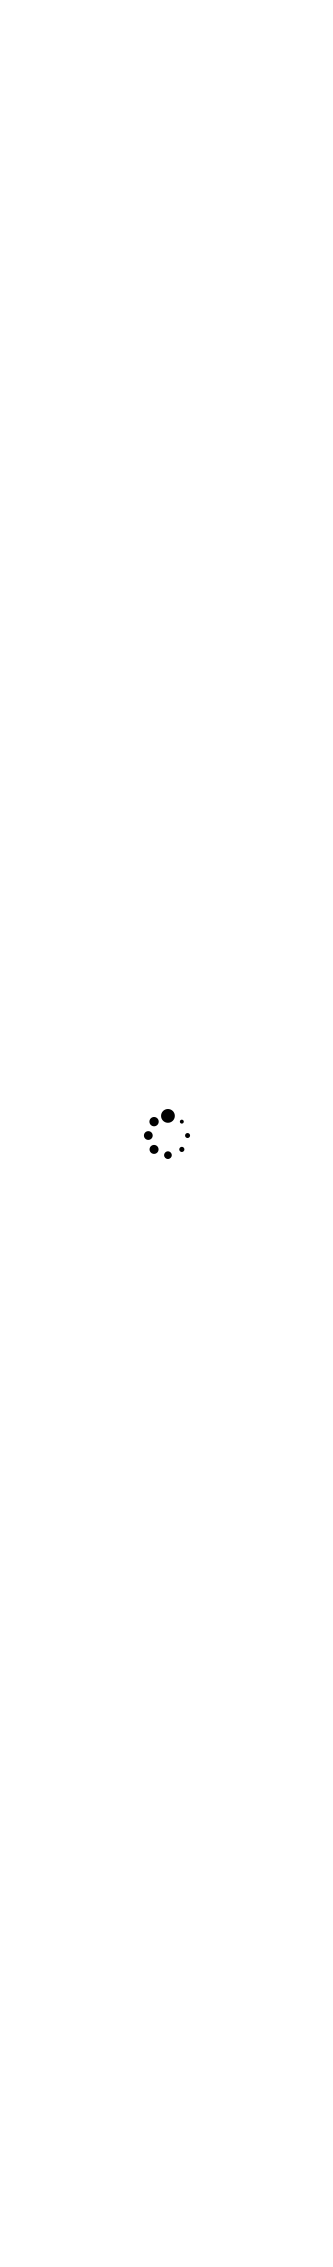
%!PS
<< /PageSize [333 2267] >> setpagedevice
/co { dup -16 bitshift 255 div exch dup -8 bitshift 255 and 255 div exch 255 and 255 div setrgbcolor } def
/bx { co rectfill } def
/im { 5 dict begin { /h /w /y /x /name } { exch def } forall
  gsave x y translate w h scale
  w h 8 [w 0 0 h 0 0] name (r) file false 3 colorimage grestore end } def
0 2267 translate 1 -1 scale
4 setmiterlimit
0 0 333 2267 16#FFFFFF bx
(media/1.raw) 143 1109 48 50 im
showpage
